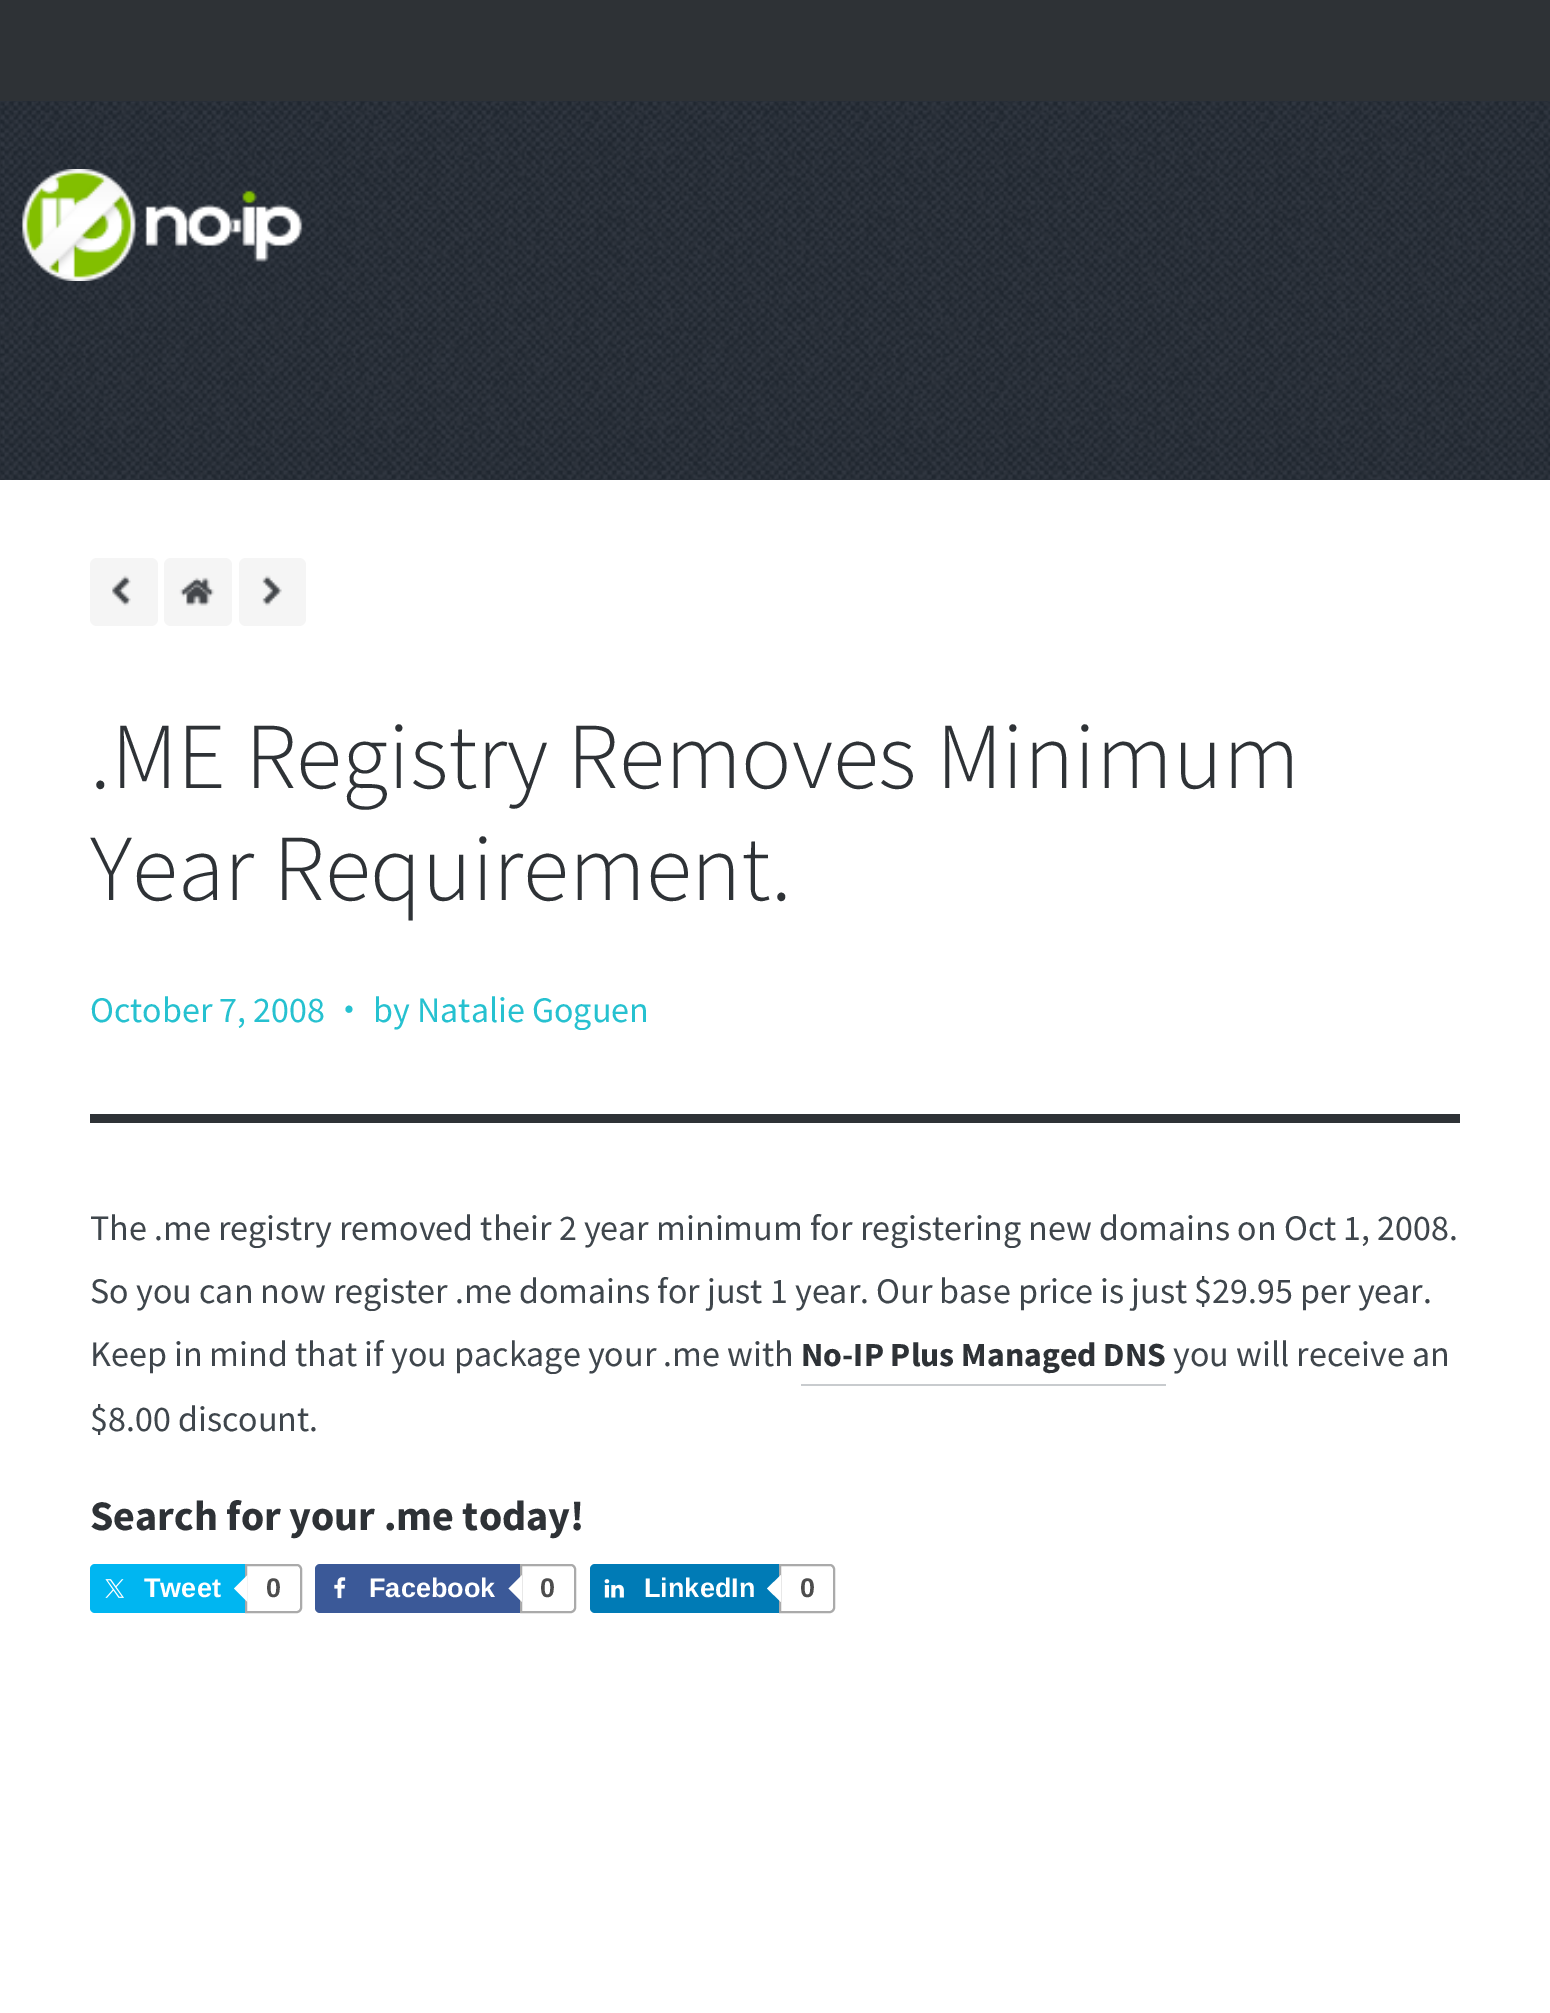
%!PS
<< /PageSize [1550 2013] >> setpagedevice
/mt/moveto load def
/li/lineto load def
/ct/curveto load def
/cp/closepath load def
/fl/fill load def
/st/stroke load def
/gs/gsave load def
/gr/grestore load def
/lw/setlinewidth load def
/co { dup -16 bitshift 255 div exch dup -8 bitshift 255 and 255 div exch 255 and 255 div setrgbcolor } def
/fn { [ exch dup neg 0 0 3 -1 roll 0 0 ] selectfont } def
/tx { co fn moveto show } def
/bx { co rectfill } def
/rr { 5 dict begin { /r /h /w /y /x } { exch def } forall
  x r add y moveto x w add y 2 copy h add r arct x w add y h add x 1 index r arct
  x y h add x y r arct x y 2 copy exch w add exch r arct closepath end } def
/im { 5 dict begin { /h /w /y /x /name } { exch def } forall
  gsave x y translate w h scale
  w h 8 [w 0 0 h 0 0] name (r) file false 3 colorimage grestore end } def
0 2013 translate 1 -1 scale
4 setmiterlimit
0 0 1550 2013 16#FFFFFF bx
0 0 1550 101 16#2E3236 bx
(media/1.raw) 0 101 1550 379 im
(media/2.raw) 22 169 281 112 im
16#F5F5F5 co
90 558 68 68 7 rr fl
(media/3.raw) 112 575 19 31 im
164 558 68 68 7 rr fl
(media/4.raw) 179 577 36 29 im
239 558 67 68 7 rr fl
(media/5.raw) 262 575 20 31 im
90 1114 1370 9 16#2E3236 bx
801 1384 365 2 16#C8CBCE bx
16#00B6F1 co
90 1564 207 49 5 rr fl
(media/6.raw) 105 1579 19 19 im
16#FFFFFF co
246 1565 mt 297 1565 li 299 1565 301 1567 301 1569 ct 301 1608 li 301 1610 299 1612 297 1612 ct 246 1612 li cp gs fl gr
16#AAAAAA co
2 lw
st
16#FFFFFF co
247.5 1575 mt 247.5 1602 li 234 1588.5 li cp fl
16#3B5998 co
315 1564 257 49 5 rr fl
(media/7.raw) 334 1577 12 22 im
16#FFFFFF co
521 1565 mt 571 1565 li 573 1565 575 1567 575 1569 ct 575 1608 li 575 1610 573 1612 571 1612 ct 521 1612 li cp gs fl gr
16#AAAAAA co
st
16#FFFFFF co
522 1575 mt 522 1602 li 508.5 1588.5 li cp fl
16#007BB6 co
590 1564 240 49 5 rr fl
(media/8.raw) 604 1579 20 19 im
16#FFFFFF co
780 1565 mt 830 1565 li 832 1565 834 1567 834 1569 ct 834 1608 li 834 1610 832 1612 830 1612 ct 780 1612 li cp gs fl gr
16#AAAAAA co
st
16#FFFFFF co
781 1575 mt 781 1602 li 767 1588.5 li cp fl
(.ME Registry Removes Minimum) 90 788 /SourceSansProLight-Light 94.5 16#2E3236 tx
(Year Requirement.) 90 900 /SourceSansProLight-Light 94.5 16#2E3236 tx
(October 7, 2008) 90 1022 /SourceSansPro-Regular 36 16#26C1D0 tx
(·) 343 1022 /SourceSansPro-Bold 40 16#26C1D0 tx
(by Natalie Goguen) 373 1022 /SourceSansPro-Regular 36 16#26C1D0 tx
(The .me registry removed their 2 year minimum for registering new domains on Oct 1, 2008.) 90 1240 /SourceSansPro-Regular 36 16#3F464C tx
(So you can now register .me domains for just 1 year. Our base price is just $29.95 per year.) 90 1303 /SourceSansPro-Regular 36 16#3F464C tx
(Keep in mind that if you package your .me with) 90 1366 /SourceSansPro-Regular 36 16#3F464C tx
(No-IP Plus Managed DNS) 801 1366 /SourceSansPro-Bold 33.75 16#2E3236 tx
(you will receive an) 1173 1366 /SourceSansPro-Regular 36 16#3F464C tx
($8.00 discount.) 90 1431 /SourceSansPro-Regular 36 16#3F464C tx
(Search for your .me today!) 90 1530 /SourceSansPro-Bold 42.1 16#2E3236 tx
(Tweet) 144 1597 /LiberationSans-Bold 27 16#FFFFFF tx
(0) 266 1597 /LiberationSans-Bold 27 16#4D4D4D tx
(Facebook) 369 1597 /LiberationSans-Bold 27 16#FFFFFF tx
(0) 540 1597 /LiberationSans-Bold 27 16#4D4D4D tx
(LinkedIn) 644 1597 /LiberationSans-Bold 27 16#FFFFFF tx
(0) 800 1597 /LiberationSans-Bold 27 16#4D4D4D tx
showpage
